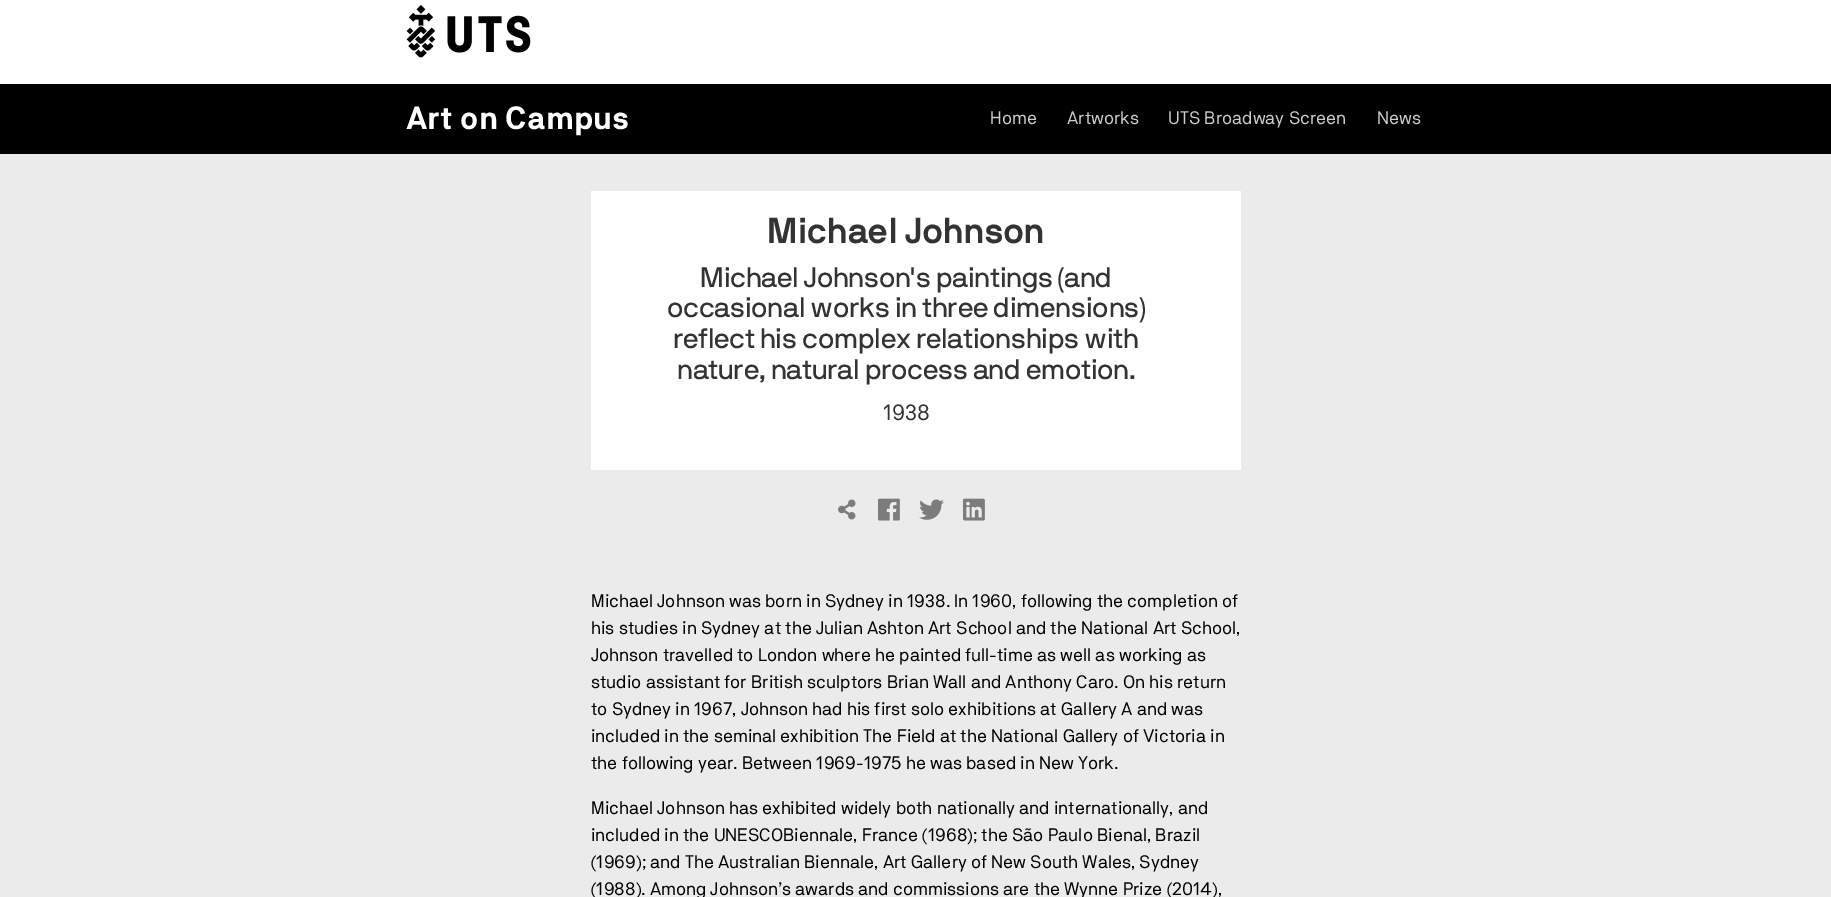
%!PS
<< /PageSize [1831 897] >> setpagedevice
/mt/moveto load def
/co { dup -16 bitshift 255 div exch dup -8 bitshift 255 and 255 div exch 255 and 255 div setrgbcolor } def
/fn { [ exch dup neg 0 0 3 -1 roll 0 0 ] selectfont } def
/tx { co fn moveto show } def
/bx { co rectfill } def
/im { 5 dict begin { /h /w /y /x /name } { exch def } forall
  gsave x y translate w h scale
  w h 8 [w 0 0 h 0 0] name (r) file false 3 colorimage grestore end } def
0 897 translate 1 -1 scale
4 setmiterlimit
0 0 1831 897 16#EBEBEB bx
0 0 1831 84 16#FFFFFF bx
(media/1.raw) 406 5 125 53 im
0 84 1831 70 16#000000 bx
591 191 650 279 16#FFFFFF bx
(media/2.raw) 838 499 18 21 im
(media/3.raw) 878 498 22 23 im
(media/4.raw) 919 499 25 21 im
(media/5.raw) 963 498 22 23 im
(Art on Campus) 406 129 /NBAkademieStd-Bold 32 16#FFFFFF tx
(Home) 990 124 /NBAkademieStd-Regular 18 16#CCCCCC tx
(Artworks) 1067 124 /NBAkademieStd-Regular 18 16#CCCCCC tx
(UTS Broadway Screen) 1168 124 /NBAkademieStd-Regular 18 16#CCCCCC tx
(News) 1377 124 /NBAkademieStd-Regular 18 16#CCCCCC tx
/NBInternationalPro-Bold 36 fn
16#333333 co
767 243 mt -.4 0 (Michael Johnson) ashow
/NBInternationalPro-Regular 28 fn
700 287 mt -.3 0 (Michael Johnson's paintings \(and) ashow
667 317 mt -.3 0 (occasional works in three dimensions\)) ashow
673 348 mt -.3 0 (reflect his complex relationships with) ashow
677 379 mt -.3 0 (nature, natural process and emotion.) ashow
(1938) 883 420 /NBAkademieStd-Regular 22 16#333333 tx
(Michael Johnson was born in Sydney in 1938. In 1960, following the completion of) 591 607 /NBAkademieStd-Regular 18 16#000000 tx
(his studies in Sydney at the Julian Ashton Art School and the National Art School,) 591 634 /NBAkademieStd-Regular 18 16#000000 tx
(Johnson travelled to London where he painted full-time as well as working as) 591 661 /NBAkademieStd-Regular 18 16#000000 tx
(studio assistant for British sculptors Brian Wall and Anthony Caro. On his return) 591 688 /NBAkademieStd-Regular 18 16#000000 tx
(to Sydney in 1967, Johnson had his first solo exhibitions at Gallery A and was) 591 715 /NBAkademieStd-Regular 18 16#000000 tx
(included in the seminal exhibition The Field at the National Gallery of Victoria in) 591 742 /NBAkademieStd-Regular 18 16#000000 tx
(the following year. Between 1969-1975 he was based in New York.) 591 769 /NBAkademieStd-Regular 18 16#000000 tx
(Michael Johnson has exhibited widely both nationally and internationally, and) 591 814 /NBAkademieStd-Regular 18 16#000000 tx
(included in the UNESCOBiennale, France \(1968\); the São Paulo Bienal, Brazil) 591 841 /NBAkademieStd-Regular 18 16#000000 tx
(\(1969\); and The Australian Biennale, Art Gallery of New South Wales, Sydney) 591 868 /NBAkademieStd-Regular 18 16#000000 tx
(\(1988\). Among Johnson’s awards and commissions are the Wynne Prize \(2014\),) 591 895 /NBAkademieStd-Regular 18 16#000000 tx
showpage
